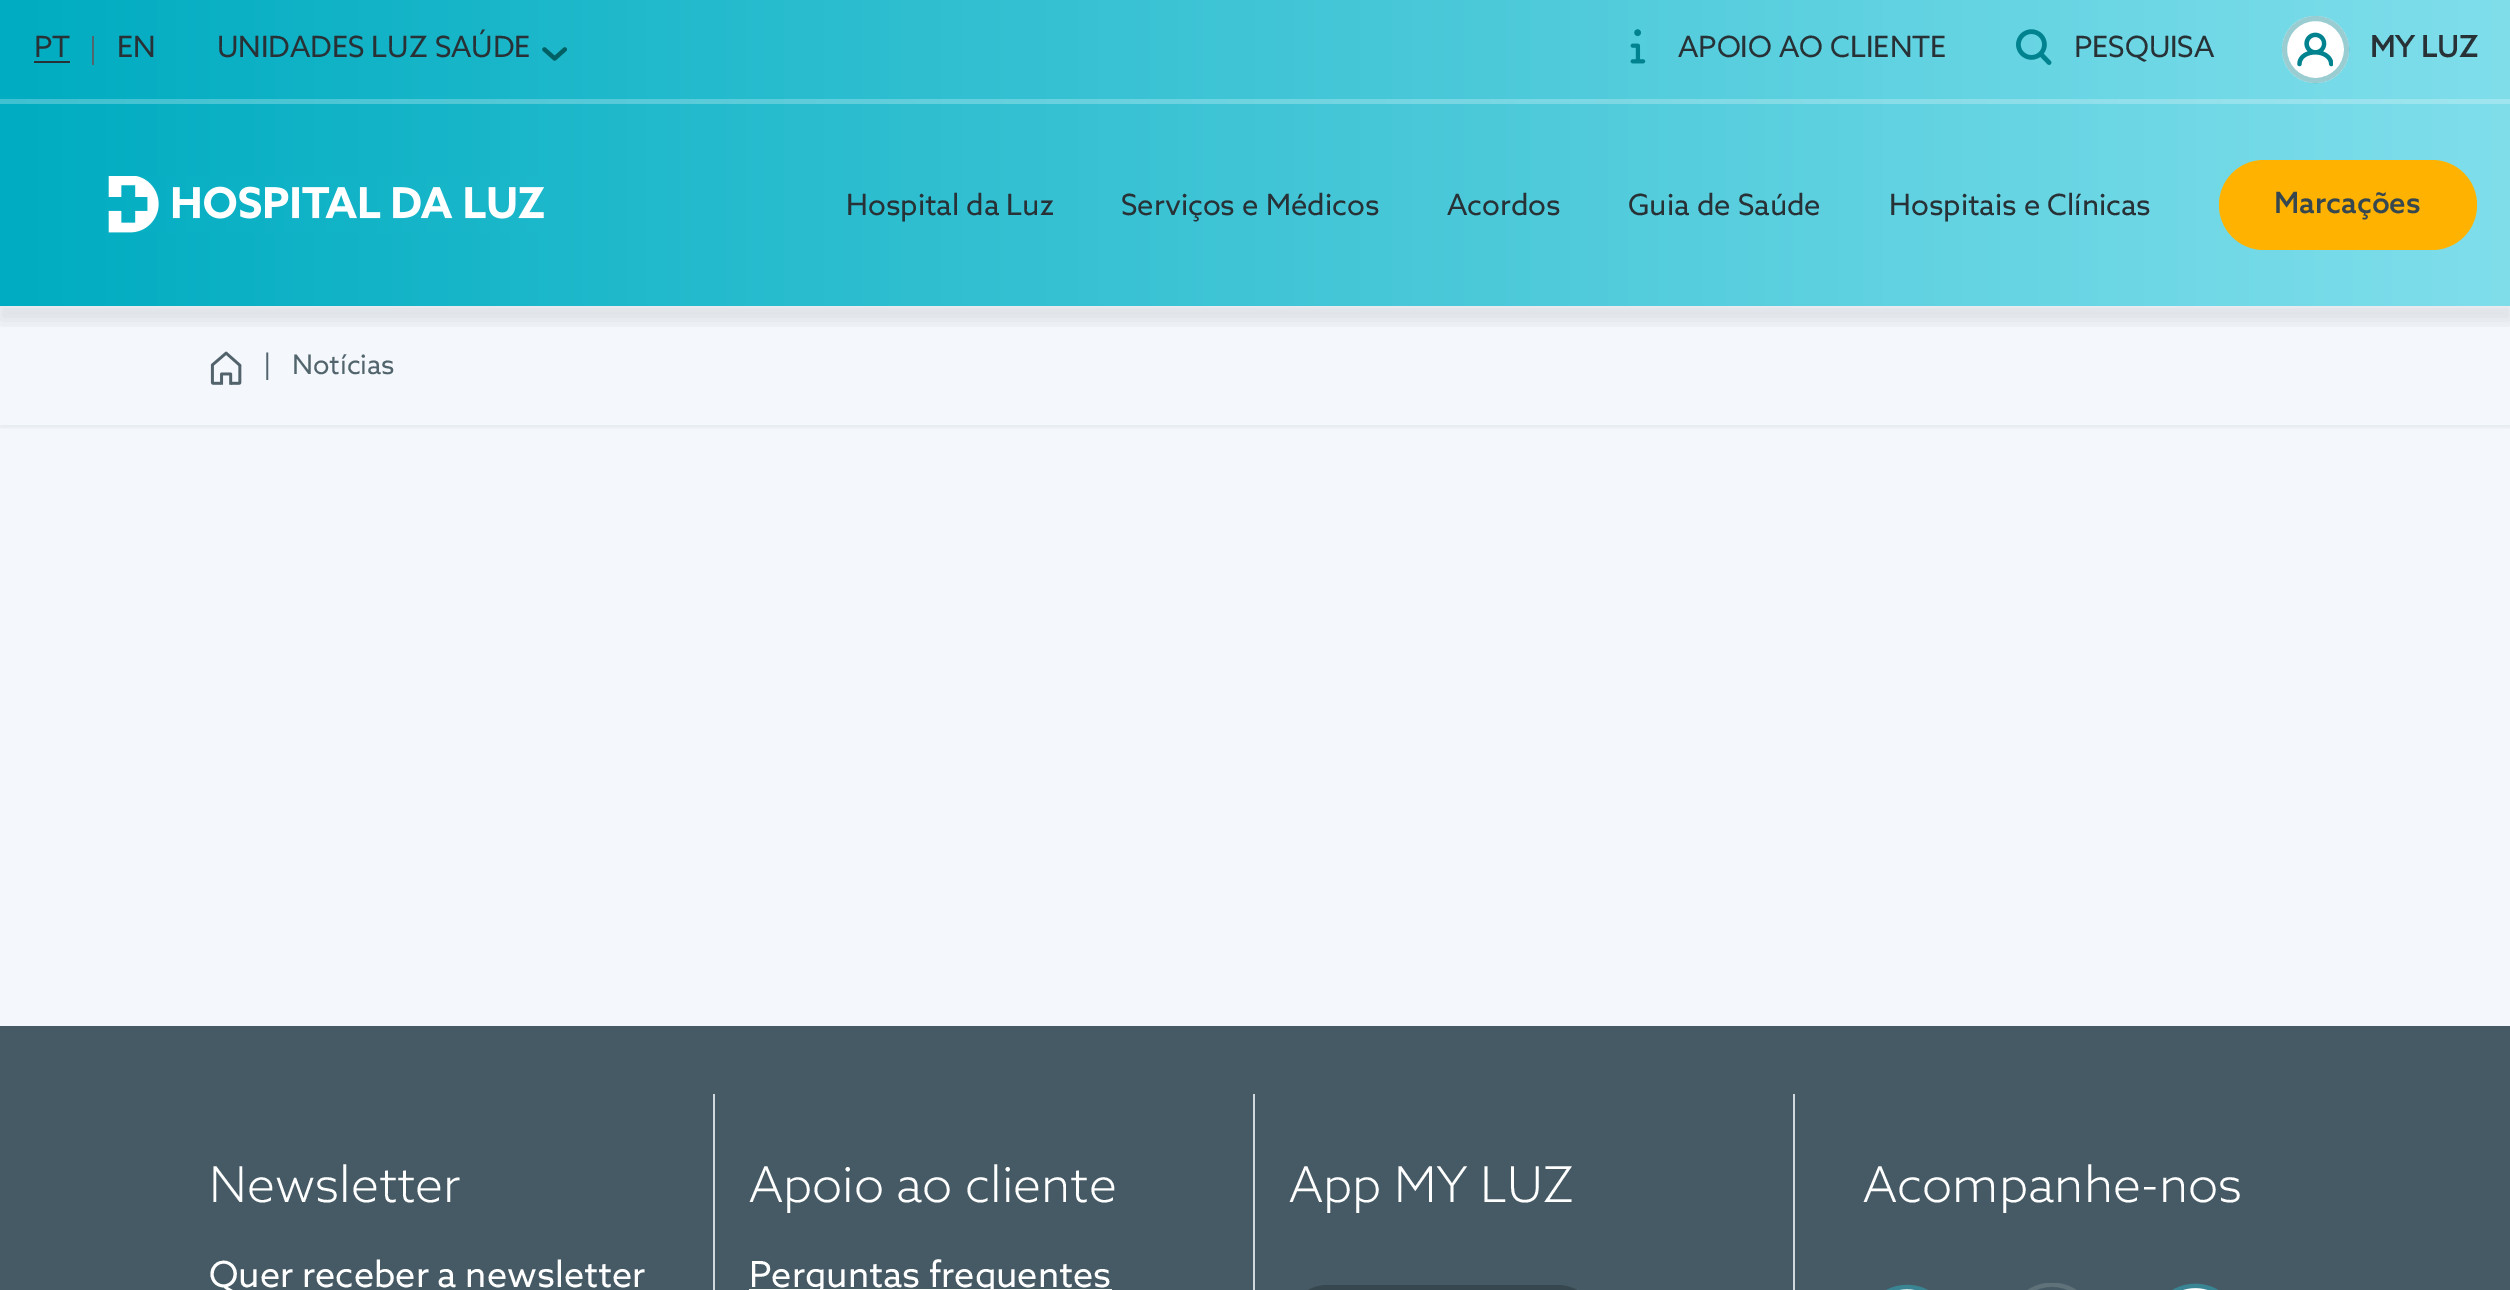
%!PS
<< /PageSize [2510 1290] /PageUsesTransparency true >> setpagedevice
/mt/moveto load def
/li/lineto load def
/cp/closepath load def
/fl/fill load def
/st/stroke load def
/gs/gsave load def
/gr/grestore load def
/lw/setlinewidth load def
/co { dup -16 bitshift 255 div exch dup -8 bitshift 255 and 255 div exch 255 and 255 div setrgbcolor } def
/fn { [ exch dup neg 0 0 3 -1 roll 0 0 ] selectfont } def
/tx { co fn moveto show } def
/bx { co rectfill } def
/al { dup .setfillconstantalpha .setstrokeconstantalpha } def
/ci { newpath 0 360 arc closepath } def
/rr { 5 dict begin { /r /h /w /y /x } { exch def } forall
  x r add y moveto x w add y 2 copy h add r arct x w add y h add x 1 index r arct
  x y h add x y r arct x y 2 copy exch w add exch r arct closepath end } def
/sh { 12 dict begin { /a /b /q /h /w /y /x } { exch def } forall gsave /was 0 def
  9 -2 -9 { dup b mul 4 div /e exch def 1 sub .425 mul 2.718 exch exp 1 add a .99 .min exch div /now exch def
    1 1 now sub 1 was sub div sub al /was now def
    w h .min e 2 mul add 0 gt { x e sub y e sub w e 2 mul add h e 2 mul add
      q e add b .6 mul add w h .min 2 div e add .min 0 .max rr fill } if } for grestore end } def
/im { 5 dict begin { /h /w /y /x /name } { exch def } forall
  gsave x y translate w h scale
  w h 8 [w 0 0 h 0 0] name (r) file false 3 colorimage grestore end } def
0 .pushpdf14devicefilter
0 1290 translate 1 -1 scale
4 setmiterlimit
0 0 2510 1290 16#F4F7FC bx
gs 0 0 mt 2510 0 li 2510 306 li 0 306 li cp clip newpath
<< /ShadingType 2 /ColorSpace /DeviceRGB /Coords [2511 153 0 153] /Extend [true true] /Function << /FunctionType 2 /Domain [0 1] /C0 [.502 .871 .922] /C1 [0 .675 .757] /N 1 >> >> shfill gr
gs 0 99 mt 2510 99 li 2510 104 li 0 104 li cp clip newpath
<< /ShadingType 2 /ColorSpace /DeviceRGB /Coords [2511 153 0 153] /Extend [true true] /Function << /FunctionType 2 /Domain [0 1] /C0 [.627 .902 .941] /C1 [.251 .757 .82] /N 1 >> >> shfill gr
34 61 36 2 16#273136 bx
92 36 2 29 16#52646C bx
(media/1.raw) 542 47 25 14 im
(media/2.raw) 1630 29 16 35 im
(media/3.raw) 2016 29 36 36 im
16#FFFFFF co
2315.5 49.5 33.5 ci fl
0.4 al
16#00838F co
5 lw
2315.5 49.5 31 ci st
1 al
(media/4.raw) 2297 32 36 35 im
(media/5.raw) 108 176 436 57 im
16#FFB300 co
2219 160 258 90 45 rr fl
gs
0 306 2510 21 rectclip
16#000000 co
0 306 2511 14 0 9 .1 sh
gr
gs
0 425 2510 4 rectclip
16#CFD8DC co
0 311 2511 117 0 1 .34 sh
gr
(media/6.raw) 210 351 32 34 im
0 1026 2510 264 16#455A64 bx
713 1094 2 196 16#CFD8DC bx
1253 1094 2 196 16#CFD8DC bx
749 1289 363 1 16#FFFFFF bx
1793 1094 2 196 16#CFD8DC bx
16#37474F co
1287 1285 311 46 40.5 rr fl
(media/7.raw) 1886 1284 42 6 im
(media/8.raw) 2027 1283 50 7 im
(media/9.raw) 2172 1283 46 7 im
(PT) 34 57 /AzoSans-Regular 29.25 16#273136 tx
(EN) 117 57 /AzoSans-Regular 29.25 16#273136 tx
(UNIDADES LUZ SAÚDE) 217 57 /AzoSans-Regular 29.25 16#273136 tx
(APOIO AO CLIENTE) 1678 57 /AzoSans-Regular 29.25 16#273136 tx
(PESQUISA) 2074 57 /AzoSans-Regular 29.25 16#273136 tx
(MY LUZ) 2370 57 /AzoSans-Bold 29.25 16#273136 tx
(Hospital da Luz) 846 215 /AzoSans-Regular 29.25 16#273136 tx
(Serviços e Médicos) 1121 215 /AzoSans-Regular 29.25 16#273136 tx
(Acordos) 1447 215 /AzoSans-Regular 29.25 16#273136 tx
(Guia de Saúde) 1628 215 /AzoSans-Regular 29.25 16#273136 tx
(Hospitais e Clínicas) 1889 215 /AzoSans-Regular 29.25 16#273136 tx
(Marcações) 2274 213 /AzoSans-Medium 29.25 16#37474F tx
(|) 263 374 /AzoSans-Regular 27 16#52646C tx
(Notícias) 292 374 /AzoSans-Regular 27 16#52646C tx
(Newsletter) 209 1202 /AzoSans-Light 49.5 16#FFFFFF tx
(Quer receber a newsletter) 209 1287 /AzoSans-Regular 36 16#FFFFFF tx
(Apoio ao cliente) 749 1202 /AzoSans-Light 49.5 16#FFFFFF tx
(Perguntas frequentes) 749 1287 /AzoSans-Regular 36 16#FFFFFF tx
(App MY LUZ) 1289 1202 /AzoSans-Light 49.5 16#FFFFFF tx
(Acompanhe-nos) 1863 1202 /AzoSans-Light 49.5 16#FFFFFF tx
.poppdf14devicefilter showpage
